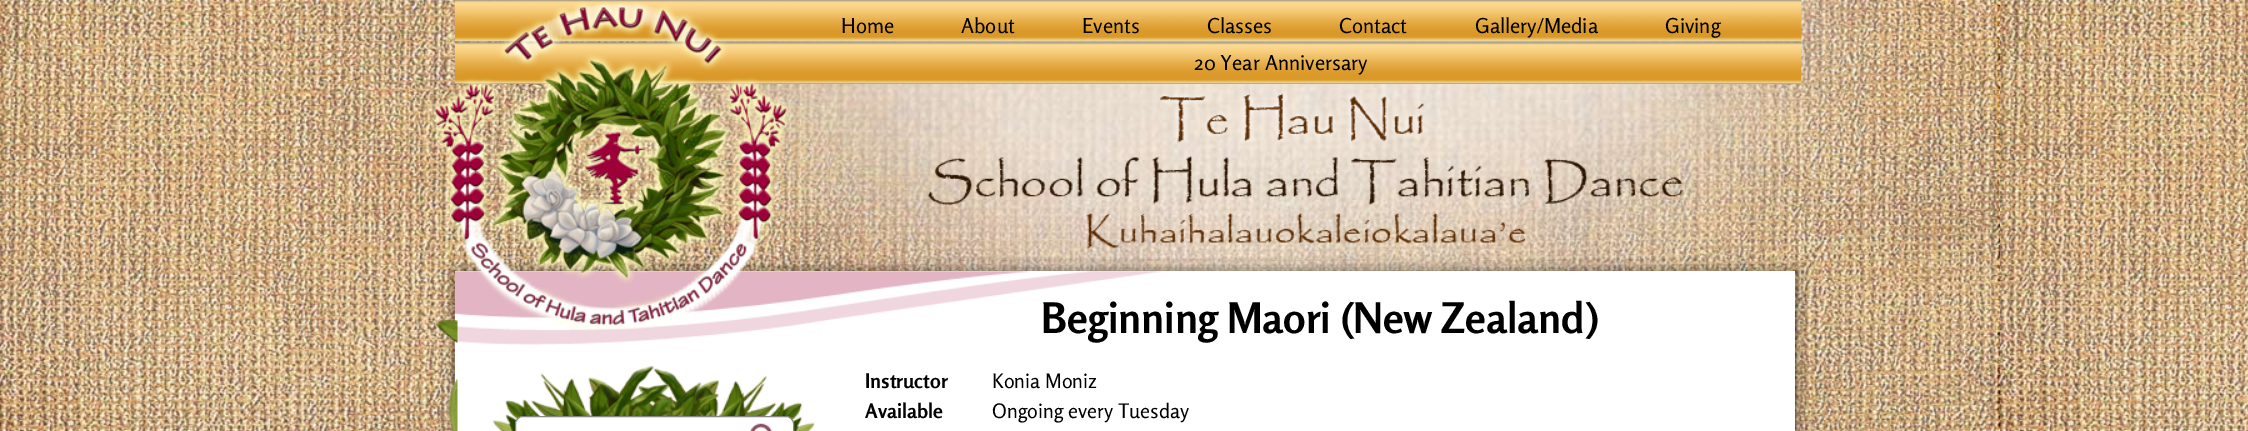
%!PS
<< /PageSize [2248 431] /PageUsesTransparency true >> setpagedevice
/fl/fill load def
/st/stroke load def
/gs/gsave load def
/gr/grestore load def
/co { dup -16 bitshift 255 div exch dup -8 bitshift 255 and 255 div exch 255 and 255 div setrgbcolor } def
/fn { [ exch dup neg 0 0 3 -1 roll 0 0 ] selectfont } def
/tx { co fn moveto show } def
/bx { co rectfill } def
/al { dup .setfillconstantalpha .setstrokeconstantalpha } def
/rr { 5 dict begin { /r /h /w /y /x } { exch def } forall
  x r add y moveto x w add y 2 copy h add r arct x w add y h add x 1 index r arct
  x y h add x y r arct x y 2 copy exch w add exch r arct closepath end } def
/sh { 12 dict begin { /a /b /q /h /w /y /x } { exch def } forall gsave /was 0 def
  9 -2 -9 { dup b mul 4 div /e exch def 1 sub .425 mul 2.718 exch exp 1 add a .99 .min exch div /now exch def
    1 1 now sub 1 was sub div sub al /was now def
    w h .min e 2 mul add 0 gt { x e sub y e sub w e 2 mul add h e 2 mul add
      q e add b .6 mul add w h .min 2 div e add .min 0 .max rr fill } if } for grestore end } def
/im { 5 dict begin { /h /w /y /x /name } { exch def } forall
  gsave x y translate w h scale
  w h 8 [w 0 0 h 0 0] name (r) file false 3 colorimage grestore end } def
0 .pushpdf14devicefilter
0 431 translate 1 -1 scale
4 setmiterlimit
0 0 2248 431 16#FFFFFF bx
(media/1.raw) 0 0 2248 431 im
(media/4.raw) 455 0 1347 84 im
455 83 1346 1 16#B1ABA3 bx
16#000000 co
453 269 1345 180 0 6 .4 sh
455 271 1340 160 16#FFFFFF bx
(media/6.raw) 455 271 706 74 im
(media/5.raw) 435 318 23 113 im
(media/2.raw) 429 1 364 329 im
(media/3.raw) 912 92 793 169 im
(media/7.raw) 492 366 323 65 im
515.5 416.5 278 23 7.5 rr gs fl gr
16#898484 co
st
(media/8.raw) 750 423 22 8 im
(Home) 841 33 /Rosario-Regular 20.6 16#000000 tx
(About) 961 33 /Rosario-Regular 20.6 16#000000 tx
(Events) 1082 33 /Rosario-Regular 20.6 16#000000 tx
(Classes) 1207 33 /Rosario-Regular 20.6 16#000000 tx
(Contact) 1339 33 /Rosario-Regular 20.6 16#000000 tx
(Gallery/Media) 1475 33 /Rosario-Regular 20.6 16#000000 tx
(Giving) 1665 33 /Rosario-Regular 20.6 16#000000 tx
(20 Year Anniversary) 1194 70 /Rosario-Regular 20.6 16#000000 tx
(Beginning Maori \(New Zealand\)) 1041 333 /Rosario-Bold 42 16#000000 tx
(Instructor) 865 388 /Rosario-Bold 20 16#000000 tx
(Konia Moniz) 992 388 /Rosario-Regular 20 16#000000 tx
(Available) 865 418 /Rosario-Bold 20 16#000000 tx
(Ongoing every Tuesday) 992 418 /Rosario-Regular 20 16#000000 tx
.poppdf14devicefilter showpage
